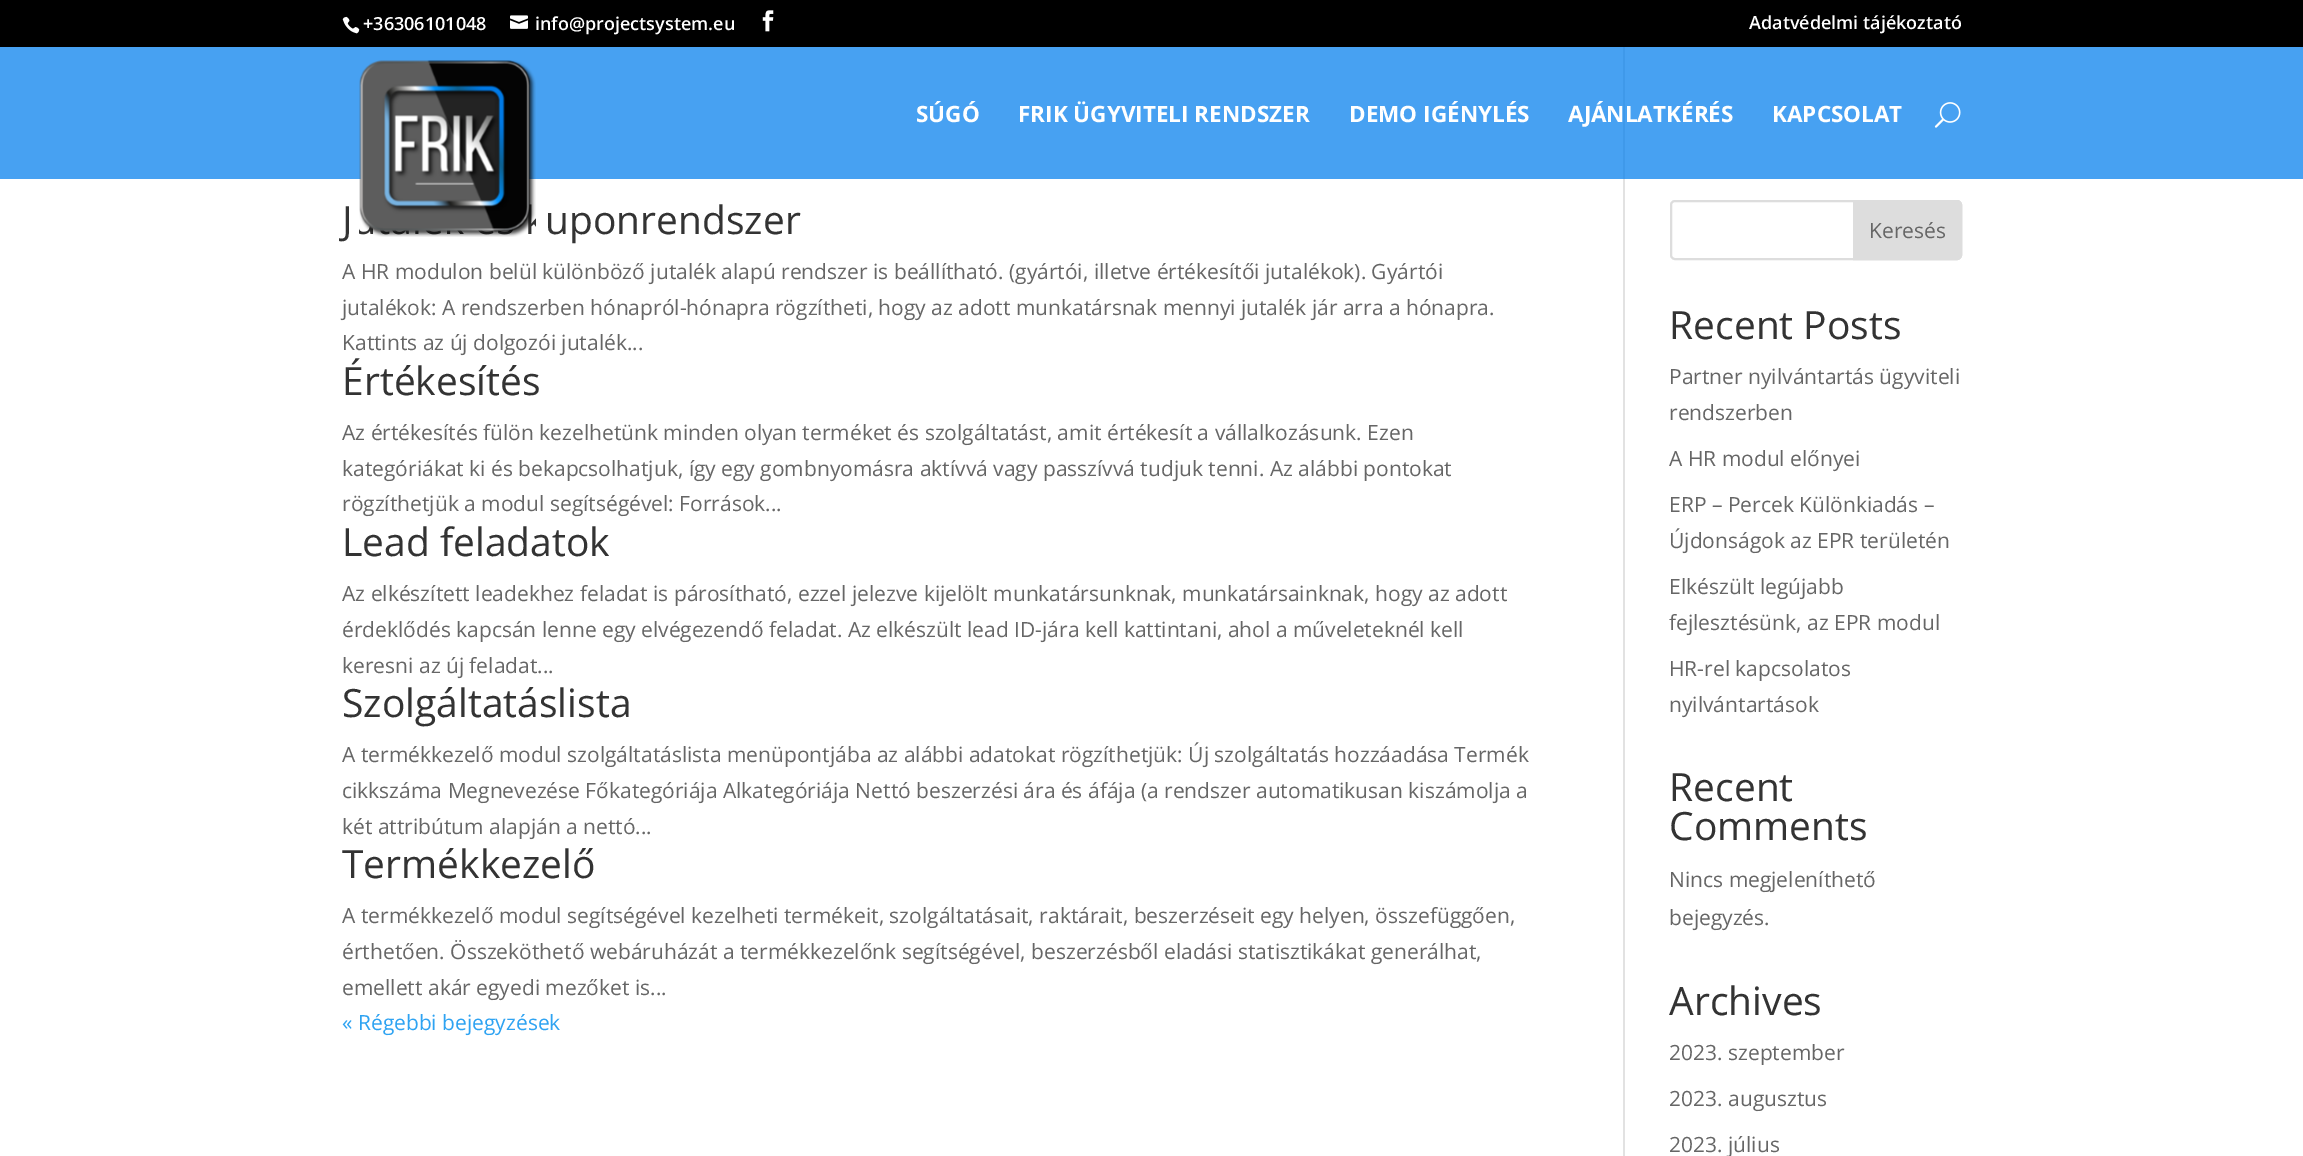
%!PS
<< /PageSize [2303 1156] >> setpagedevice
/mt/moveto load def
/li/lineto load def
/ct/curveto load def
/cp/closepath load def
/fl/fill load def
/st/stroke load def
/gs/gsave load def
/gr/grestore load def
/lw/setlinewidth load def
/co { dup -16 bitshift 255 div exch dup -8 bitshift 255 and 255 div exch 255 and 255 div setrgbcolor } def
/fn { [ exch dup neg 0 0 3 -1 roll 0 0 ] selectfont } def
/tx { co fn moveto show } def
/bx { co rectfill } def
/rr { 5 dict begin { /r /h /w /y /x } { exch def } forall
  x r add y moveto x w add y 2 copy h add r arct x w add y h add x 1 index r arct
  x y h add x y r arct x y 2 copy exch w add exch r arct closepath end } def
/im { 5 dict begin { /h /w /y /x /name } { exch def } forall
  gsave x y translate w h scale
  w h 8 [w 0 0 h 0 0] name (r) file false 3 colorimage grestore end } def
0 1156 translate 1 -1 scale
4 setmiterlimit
0 0 2303 1156 16#FFFFFF bx
0 47 2303 132 16#47A1F2 bx
0 0 2303 47 16#000000 bx
(media/1.raw) 342 16 18 18 im
(media/2.raw) 510 15 18 14 im
(media/3.raw) 762 10 12 22 im
(media/4.raw) 359 60 177 177 im
(media/5.raw) 1934 102 27 26 im
1623 179 2 977 16#E2E2E2 bx
1623 47 2 132 16#3F99EA bx
16#DDDDDD co
2 lw
1671 201 290 58 4 rr st
1854 201 mt 1957 201 li 1959 201 1961 203 1961 205 ct 1961 255 li 1961 257 1959 259 1957 259 ct 1854 259 li cp gs fl gr
st
(+36306101048) 363 30 /OpenSans-SemiBold 18 16#FFFFFF tx
(info@projectsystem.eu) 535 30 /OpenSans-SemiBold 18 16#FFFFFF tx
(Adatvédelmi tájékoztató) 1749 29 /OpenSans-SemiBold 18 16#FFFFFF tx
(SÚGÓ) 916 122 /OpenSans-Bold 22.5 16#FFFFFF tx
(FRIK ÜGYVITELI RENDSZER) 1018 122 /OpenSans-Bold 22.5 16#FFFFFF tx
(DEMO IGÉNYLÉS) 1349 122 /OpenSans-Bold 22.5 16#FFFFFF tx
(AJÁNLATKÉRÉS) 1568 122 /OpenSans-Bold 22.5 16#FFFFFF tx
(KAPCSOLAT) 1772 122 /OpenSans-Bold 22.5 16#FFFFFF tx
(J) 342 234 /OpenSans-Regular 39 16#333333 tx
(uponrendszer) 545 234 /OpenSans-Regular 39 16#333333 tx
(A HR modulon belül különböző jutalék alapú rendszer is beállítható. \(gyártói, illetve értékesítői jutalékok\). Gyártói) 342 279 /OpenSans-Regular 21 16#666666 tx
(jutalékok: A rendszerben hónapról-hónapra rögzítheti, hogy az adott munkatársnak mennyi jutalék jár arra a hónapra.) 342 315 /OpenSans-Regular 21 16#666666 tx
(Kattints az új dolgozói jutalék...) 342 350 /OpenSans-Regular 21 16#666666 tx
(Értékesítés) 342 395 /OpenSans-Regular 39 16#333333 tx
(Az értékesítés fülön kezelhetünk minden olyan terméket és szolgáltatást, amit értékesít a vállalkozásunk. Ezen) 342 440 /OpenSans-Regular 21 16#666666 tx
(kategóriákat ki és bekapcsolhatjuk, így egy gombnyomásra aktívvá vagy passzívvá tudjuk tenni. Az alábbi pontokat) 342 476 /OpenSans-Regular 21 16#666666 tx
(rögzíthetjük a modul segítségével: Források...) 342 511 /OpenSans-Regular 21 16#666666 tx
(Lead feladatok) 342 556 /OpenSans-Regular 39 16#333333 tx
(Az elkészített leadekhez feladat is párosítható, ezzel jelezve kijelölt munkatársunknak, munkatársainknak, hogy az adott) 342 601 /OpenSans-Regular 21 16#666666 tx
(érdeklődés kapcsán lenne egy elvégezendő feladat. Az elkészült lead ID-jára kell kattintani, ahol a műveleteknél kell) 342 637 /OpenSans-Regular 21 16#666666 tx
(keresni az új feladat...) 342 673 /OpenSans-Regular 21 16#666666 tx
(Szolgáltatáslista) 342 717 /OpenSans-Regular 39 16#333333 tx
(A termékkezelő modul szolgáltatáslista menüpontjába az alábbi adatokat rögzíthetjük: Új szolgáltatás hozzáadása Termék) 342 762 /OpenSans-Regular 21 16#666666 tx
(cikkszáma Megnevezése Főkategóriája Alkategóriája Nettó beszerzési ára és áfája \(a rendszer automatikusan kiszámolja a) 342 798 /OpenSans-Regular 21 16#666666 tx
(két attribútum alapján a nettó...) 342 834 /OpenSans-Regular 21 16#666666 tx
(Termékkezelő) 342 878 /OpenSans-Regular 39 16#333333 tx
(A termékkezelő modul segítségével kezelheti termékeit, szolgáltatásait, raktárait, beszerzéseit egy helyen, összefüggően,) 342 923 /OpenSans-Regular 21 16#666666 tx
(érthetően. Összeköthető webáruházát a termékkezelőnk segítségével, beszerzésből eladási statisztikákat generálhat,) 342 959 /OpenSans-Regular 21 16#666666 tx
(emellett akár egyedi mezőket is...) 342 995 /OpenSans-Regular 21 16#666666 tx
(« Régebbi bejegyzések) 342 1030 /OpenSans-Regular 21 16#2EA3F2 tx
(Keresés) 1869 238 /OpenSans-Regular 21 16#666666 tx
(Recent Posts) 1669 339 /OpenSans-Regular 39 16#333333 tx
(Partner nyilvántartás ügyviteli) 1669 384 /OpenSans-Regular 21 16#666666 tx
(rendszerben) 1669 420 /OpenSans-Regular 21 16#666666 tx
(A HR modul előnyei) 1669 466 /OpenSans-Regular 21 16#666666 tx
(ERP – Percek Különkiadás –) 1669 512 /OpenSans-Regular 21 16#666666 tx
(Újdonságok az EPR területén) 1669 548 /OpenSans-Regular 21 16#666666 tx
(Elkészült legújabb) 1669 594 /OpenSans-Regular 21 16#666666 tx
(fejlesztésünk, az EPR modul) 1669 630 /OpenSans-Regular 21 16#666666 tx
(HR-rel kapcsolatos) 1669 676 /OpenSans-Regular 21 16#666666 tx
(nyilvántartások) 1669 712 /OpenSans-Regular 21 16#666666 tx
(Recent) 1669 801 /OpenSans-Regular 39 16#333333 tx
(Comments) 1669 840 /OpenSans-Regular 39 16#333333 tx
(Nincs megjeleníthető) 1669 887 /OpenSans-Regular 21 16#666666 tx
(bejegyzés.) 1669 925 /OpenSans-Regular 21 16#666666 tx
(Archives) 1669 1015 /OpenSans-Regular 39 16#333333 tx
(2023. szeptember) 1669 1060 /OpenSans-Regular 21 16#666666 tx
(2023. augusztus) 1669 1106 /OpenSans-Regular 21 16#666666 tx
(2023. július) 1669 1152 /OpenSans-Regular 21 16#666666 tx
showpage
